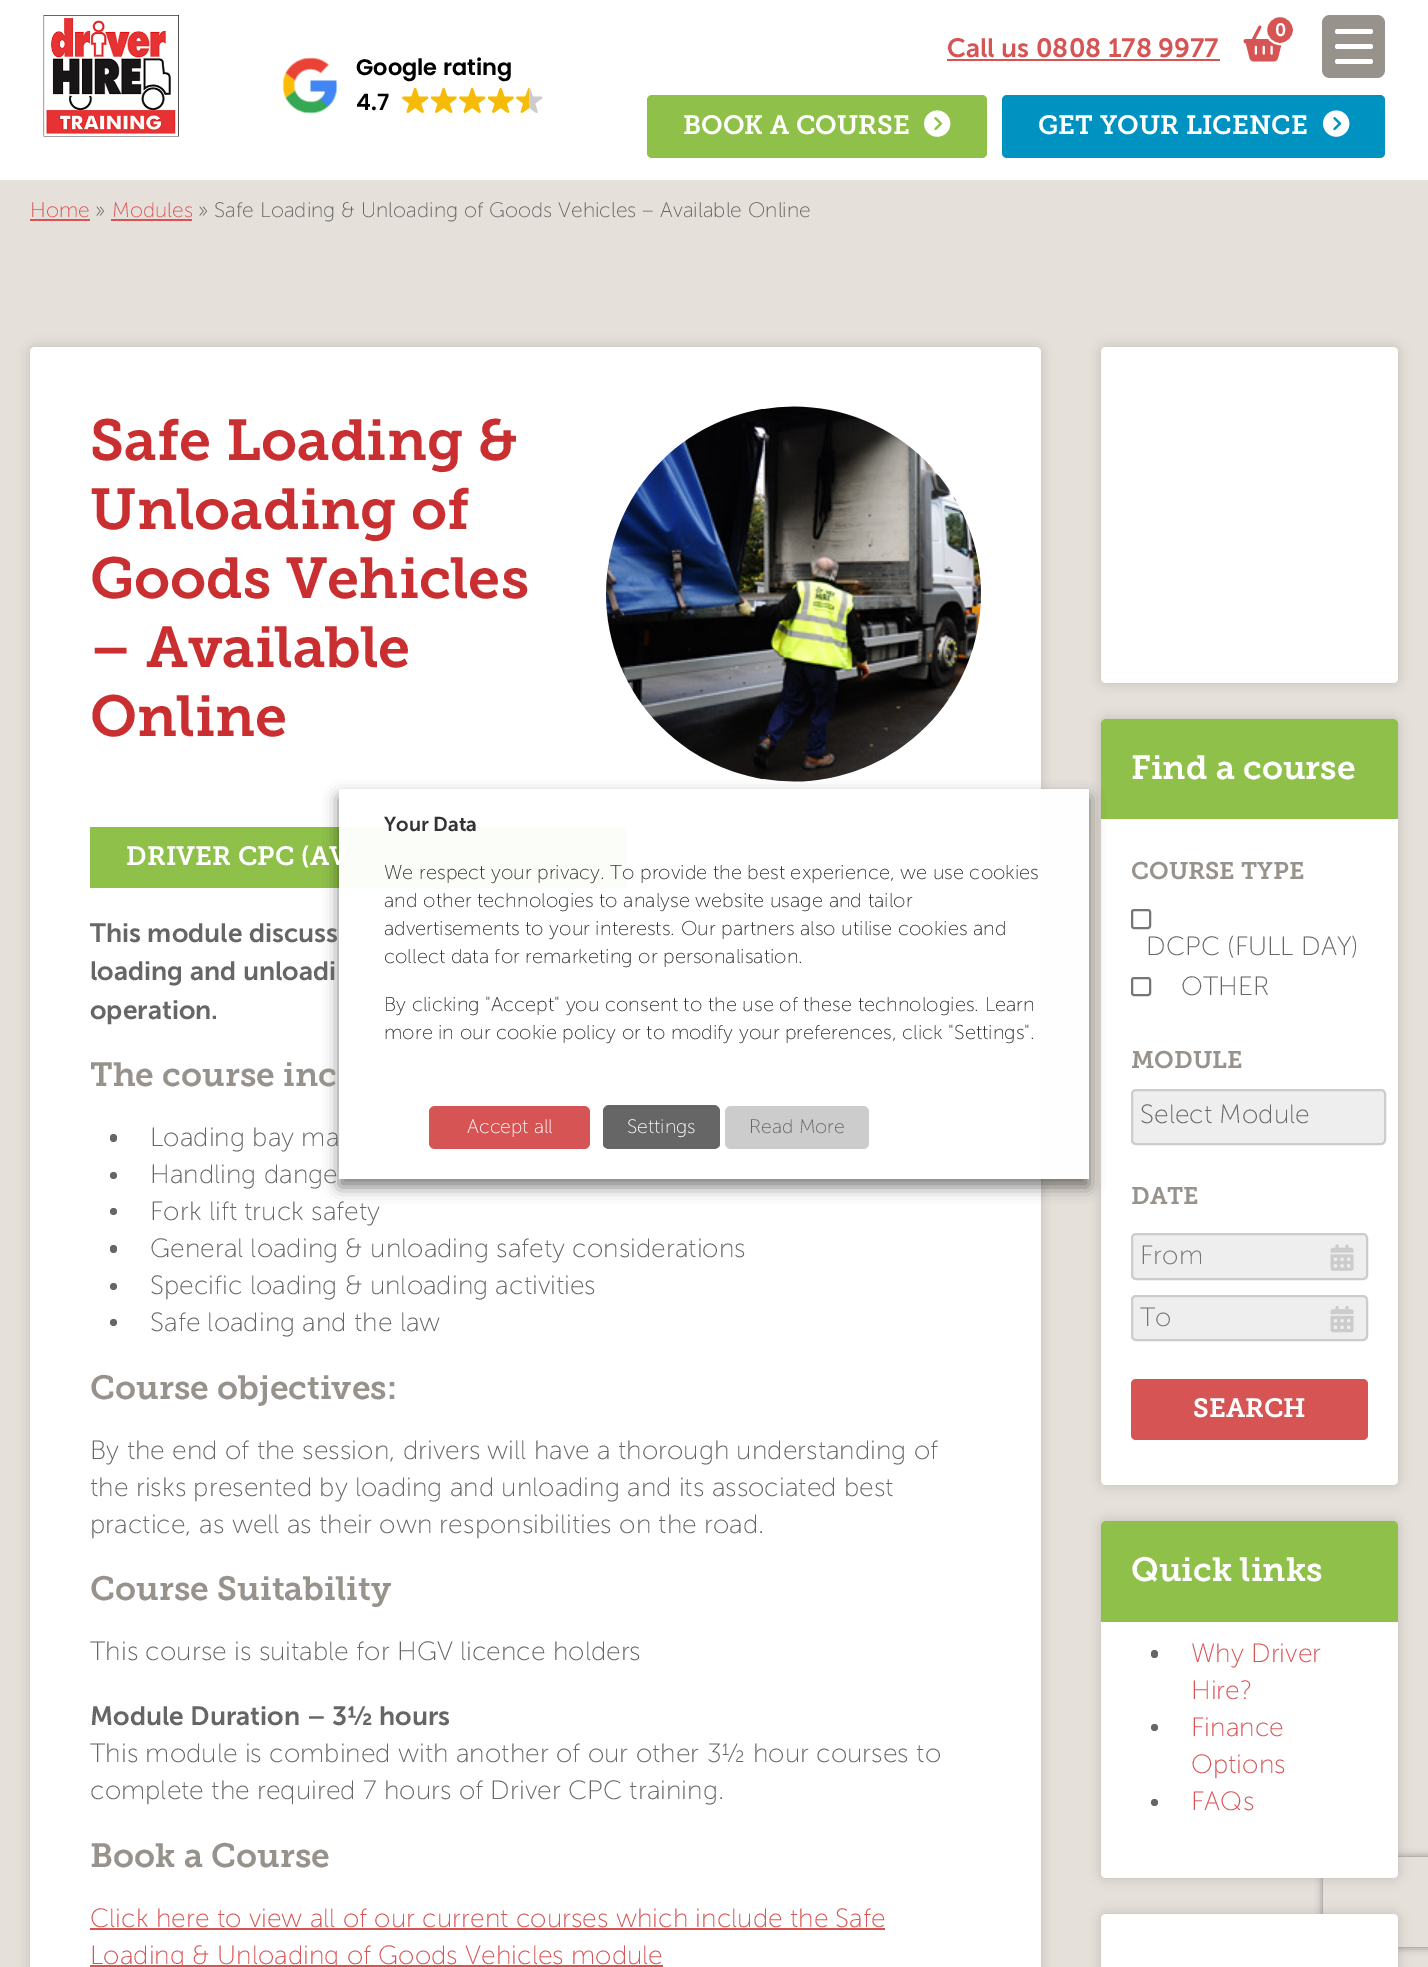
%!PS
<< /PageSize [1428 1967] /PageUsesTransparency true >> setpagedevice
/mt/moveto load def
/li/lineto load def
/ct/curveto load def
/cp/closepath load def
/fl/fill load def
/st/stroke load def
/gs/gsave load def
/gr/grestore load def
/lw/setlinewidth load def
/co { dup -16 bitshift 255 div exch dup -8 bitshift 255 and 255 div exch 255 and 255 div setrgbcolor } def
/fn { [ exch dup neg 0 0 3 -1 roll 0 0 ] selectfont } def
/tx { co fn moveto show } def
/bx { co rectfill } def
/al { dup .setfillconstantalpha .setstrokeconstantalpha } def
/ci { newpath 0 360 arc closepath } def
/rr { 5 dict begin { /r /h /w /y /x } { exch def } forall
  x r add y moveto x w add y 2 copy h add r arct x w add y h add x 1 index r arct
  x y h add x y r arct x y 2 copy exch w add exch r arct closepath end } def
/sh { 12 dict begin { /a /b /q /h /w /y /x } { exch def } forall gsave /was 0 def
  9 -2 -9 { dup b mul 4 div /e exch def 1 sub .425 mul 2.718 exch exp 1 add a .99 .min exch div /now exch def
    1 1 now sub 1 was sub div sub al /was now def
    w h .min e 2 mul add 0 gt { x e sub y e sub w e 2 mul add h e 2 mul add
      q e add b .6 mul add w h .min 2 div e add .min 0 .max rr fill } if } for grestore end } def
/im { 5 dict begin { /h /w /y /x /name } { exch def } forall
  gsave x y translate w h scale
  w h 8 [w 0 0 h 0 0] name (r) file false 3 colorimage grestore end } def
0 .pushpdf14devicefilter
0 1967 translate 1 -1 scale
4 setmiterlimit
0 0 1428 1967 16#E6E0DA bx
0 0 1428 180 16#FFFFFF bx
(media/1.raw) 43 15 136 122 im
(media/2.raw) 1243 25 39 37 im
16#D75455 co
1280 30 14 ci gs fl gr
16#FFFFFF co
2 lw
st
947 59 273 2 16#D75455 bx
(media/3.raw) 282 57 56 57 im
(media/4.raw) 402 87 27 26 im
(media/5.raw) 431 87 26 26 im
(media/4.raw) 459 87 27 26 im
(media/5.raw) 488 87 26 26 im
(media/6.raw) 516 87 27 26 im
16#8FC04A co
647 95 340 63 5 rr fl
(media/7.raw) 924 110 27 27 im
16#0093C2 co
1002 95 383 63 5 rr fl
(media/8.raw) 1323 110 27 27 im
16#98928D co
1322 15 63 63 8 rr fl
16#FFFFFF co
1335 44 38 5 2.5 rr fl
1335 29 38 5 2.5 rr fl
1335 59 38 5 2.5 rr fl
30 219 60 2 16#D75455 bx
111 219 81 2 16#D75455 bx
16#000000 co
30 347 1011 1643 5 6 .15 sh
16#FFFFFF co
30 347 1011 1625 5 rr fl
(media/9.raw) 606 406 375 376 im
90 827 536 61 16#8FC04A bx
16#666666 co
110 1134 7 8 3.5 rr fl
113.5 1175.5 3.5 ci fl
113.5 1211.5 3.5 ci fl
110 1245 7 8 3.5 rr fl
113.5 1286.5 3.5 ci fl
113.5 1322.5 3.5 ci fl
90 1928 795 2 16#D75455 bx
90 1965 573 2 16#D75455 bx
16#000000 co
1101 347 297 336 5 6 .15 sh
16#FFFFFF co
1101 347 297 336 5 rr fl
16#000000 co
1101 719 297 766 5 6 .15 sh
16#FFFFFF co
1101 719 297 766 5 rr fl
16#8FC04A co
1106 719 mt 1393 719 li 1396 719 1398 721 1398 724 ct 1398 819 li 1101 819 li 1101 724 li 1101 721 1103 719 1106 719 ct cp fl
16#767676 co
1132 910 18 18 2 rr st
1132 978 18 17 2 rr st
16#EEEEEE co
1132 1090 253 54 4 rr gs fl gr
16#CCCCCC co
st
16#EEEEEE co
1132 1234 235 45 4 rr gs fl gr
16#CCCCCC co
st
(media/10.raw) 1330 1244 24 27 im
16#EEEEEE co
1132 1296 235 44 4 rr gs fl gr
16#CCCCCC co
st
(media/11.raw) 1330 1306 24 27 im
16#D75455 co
1131 1379 237 61 5 rr fl
16#000000 co
1101 1521 297 357 5 6 .15 sh
gs
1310 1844 mt 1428 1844 li 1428 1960 li 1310 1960 li cp 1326 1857 mt 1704 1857 li 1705.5 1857 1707 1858.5 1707 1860 ct 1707 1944 li 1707 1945.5 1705.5 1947 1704 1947 ct 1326 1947 li 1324.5 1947 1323 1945.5 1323 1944 ct 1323 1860 li 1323 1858.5 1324.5 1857 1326 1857 ct cp eoclip newpath
16#808080 co
1323 1857 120 90 3 4 1 sh
gr
16#FFFFFF co
1101 1521 297 357 5 rr fl
16#8FC04A co
1106 1521 mt 1393 1521 li 1396 1521 1398 1523 1398 1526 ct 1398 1622 li 1101 1622 li 1101 1526 li 1101 1523 1103 1521 1106 1521 ct cp fl
16#666666 co
1151 1650 7 8 3.5 rr fl
1154.5 1727.5 3.5 ci fl
1154.5 1802.5 3.5 ci fl
16#000000 co
1101 1914 297 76 5 6 .15 sh
16#FFFFFF co
1101 1914 297 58 5 rr fl
gs
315 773 mt 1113 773 li 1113 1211 li 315 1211 li cp 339 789 mt 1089 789 li 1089 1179 li 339 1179 li cp eoclip newpath
16#000000 co
339 797 750 390 0 7.5 .5 sh
gr
(0) 1275 36 /MuseoSans-SemiBold 18 16#FFFFFF tx
(Call us 0808 178 9977) 947 57 /MuseoSans-SemiBold 26.4 16#D75455 tx
(Google rating) 356 75 /Poppins-SemiBold 22.5 16#000000 tx
(4.7) 356 110 /Poppins-SemiBold 22.5 16#000000 tx
(BOOK A COURSE) 683 134 /MuseoSlab-SemiBold 26.4 16#FFFFFF tx
(GET YOUR LICENCE) 1038 134 /MuseoSlab-SemiBold 26.4 16#FFFFFF tx
(Home) 30 217 /MuseoSans-Light 21 16#D75455 tx
(») 95 217 /MuseoSans-Light 21 16#666666 tx
(Modules) 112 217 /MuseoSans-Light 21 16#D75455 tx
(» Safe Loading & Unloading of Goods Vehicles – Available Online) 198 217 /MuseoSans-Light 21 16#666666 tx
(Safe Loading &) 90 460 /MuseoSlab-SemiBold 57.5 16#C92F30 tx
(Unloading of) 90 529 /MuseoSlab-SemiBold 57.5 16#C92F30 tx
(Goods Vehicles) 90 598 /MuseoSlab-SemiBold 57.5 16#C92F30 tx
(– Available) 90 667 /MuseoSlab-SemiBold 57.5 16#C92F30 tx
(Online) 90 736 /MuseoSlab-SemiBold 57.5 16#C92F30 tx
(DRIVER CPC \(AV) 126 865 /MuseoSlab-SemiBold 26.4 16#FFFFFF tx
(This module discuss) 90 942 /MuseoSans-SemiBold 26.4 16#666666 tx
(loading and unloadi) 90 980 /MuseoSans-SemiBold 26.4 16#666666 tx
(operation.) 90 1019 /MuseoSans-SemiBold 26.4 16#666666 tx
(The course inc) 90 1086 /MuseoSlab-SemiBold 33.5 16#98928D tx
(Loading bay ma) 150 1146 /MuseoSans-Light 26.4 16#666666 tx
(Handling dange) 150 1183 /MuseoSans-Light 26.4 16#666666 tx
(Fork lift truck safety) 150 1220 /MuseoSans-Light 26.4 16#666666 tx
(General loading & unloading safety considerations) 150 1257 /MuseoSans-Light 26.4 16#666666 tx
(Specific loading & unloading activities) 150 1294 /MuseoSans-Light 26.4 16#666666 tx
(Safe loading and the law) 150 1331 /MuseoSans-Light 26.4 16#666666 tx
(Course objectives:) 90 1399 /MuseoSlab-SemiBold 33.5 16#98928D tx
(By the end of the session, drivers will have a thorough understanding of) 90 1459 /MuseoSans-Light 26.4 16#666666 tx
(the risks presented by loading and unloading and its associated best) 90 1496 /MuseoSans-Light 26.4 16#666666 tx
(practice, as well as their own responsibilities on the road.) 90 1533 /MuseoSans-Light 26.4 16#666666 tx
(Course Suitability) 90 1600 /MuseoSlab-SemiBold 33.5 16#98928D tx
(This course is suitable for HGV licence holders) 90 1660 /MuseoSans-Light 26.4 16#666666 tx
(Module Duration – 3½ hours) 90 1725 /MuseoSans-SemiBold 26.4 16#666666 tx
(This module is combined with another of our other 3½ hour courses to) 90 1762 /MuseoSans-Light 26.4 16#666666 tx
(complete the required 7 hours of Driver CPC training.) 90 1799 /MuseoSans-Light 26.4 16#666666 tx
(Book a Course) 90 1867 /MuseoSlab-SemiBold 33.5 16#98928D tx
(Click here to view all of our current courses which include the Safe) 90 1927 /MuseoSans-Light 26.4 16#D75455 tx
(Loading & Unloading of Goods Vehicles module) 90 1964 /MuseoSans-Light 26.4 16#D75455 tx
(Find a course) 1131 779 /MuseoSlab-SemiBold 33.5 16#FFFFFF tx
(COURSE TYPE) 1131 879 /MuseoSlab-SemiBold 24 16#98928D tx
(DCPC \(FULL DAY\)) 1146 955 /MuseoSans-Light 26.4 16#666666 tx
(OTHER) 1181 995 /MuseoSans-Light 26.4 16#666666 tx
(MODULE) 1131 1068 /MuseoSlab-SemiBold 24 16#98928D tx
(Select Module) 1140 1123 /MuseoSans-Light 26.4 16#666666 tx
(DATE) 1131 1204 /MuseoSlab-SemiBold 24 16#98928D tx
(From) 1140 1264 /MuseoSans-Light 26.4 16#757575 tx
(To) 1140 1326 /MuseoSans-Light 26.4 16#757575 tx
(SEARCH) 1193 1417 /MuseoSlab-SemiBold 26.4 16#FFFFFF tx
(Quick links) 1131 1581 /MuseoSlab-SemiBold 33.5 16#FFFFFF tx
(Why Driver) 1191 1662 /MuseoSans-Light 26.4 16#D75455 tx
(Hire?) 1191 1699 /MuseoSans-Light 26.4 16#D75455 tx
(Finance) 1191 1736 /MuseoSans-Light 26.4 16#D75455 tx
(Options) 1191 1773 /MuseoSans-Light 26.4 16#D75455 tx
(FAQs) 1191 1810 /MuseoSans-Light 26.4 16#D75455 tx
0.97 al
339 789 750 390 16#FFFFFF bx
1 al
(Your Data) 384 831 /MuseoSans-SemiBold 20 16#333333 tx
(We respect your privacy. To provide the best experience, we use cookies) 384 879 /MuseoSans-Light 20 16#333333 tx
(and other technologies to analyse website usage and tailor) 384 907 /MuseoSans-Light 20 16#333333 tx
(advertisements to your interests. Our partners also utilise cookies and) 384 935 /MuseoSans-Light 20 16#333333 tx
(collect data for remarketing or personalisation.) 384 963 /MuseoSans-Light 20 16#333333 tx
(By clicking "Accept" you consent to the use of these technologies. Learn) 384 1011 /MuseoSans-Light 20 16#333333 tx
(more in our cookie policy or to modify your preferences, click "Settings".) 384 1039 /MuseoSans-Light 20 16#333333 tx
16#D75455 co
429 1106 161 43 6 rr fl
(Accept all) 467 1133 /MuseoSans-Light 19.5 16#FFFFFF tx
16#666666 co
609 1105 mt 714 1105 li 717 1105 720 1108 720 1111 ct 720 1144 li 720 1147 717 1149 714 1149 ct 609 1149 li 606 1149 603 1147 603 1144 ct 603 1111 li 603 1108 606 1105 609 1105 ct cp fl
(Settings) 627 1133 /MuseoSans-Light 19.5 16#FFFFFF tx
16#CCCCCC co
725 1106 144 43 6 rr fl
(Read More) 749 1133 /MuseoSans-Light 19.5 16#666666 tx
.poppdf14devicefilter showpage
